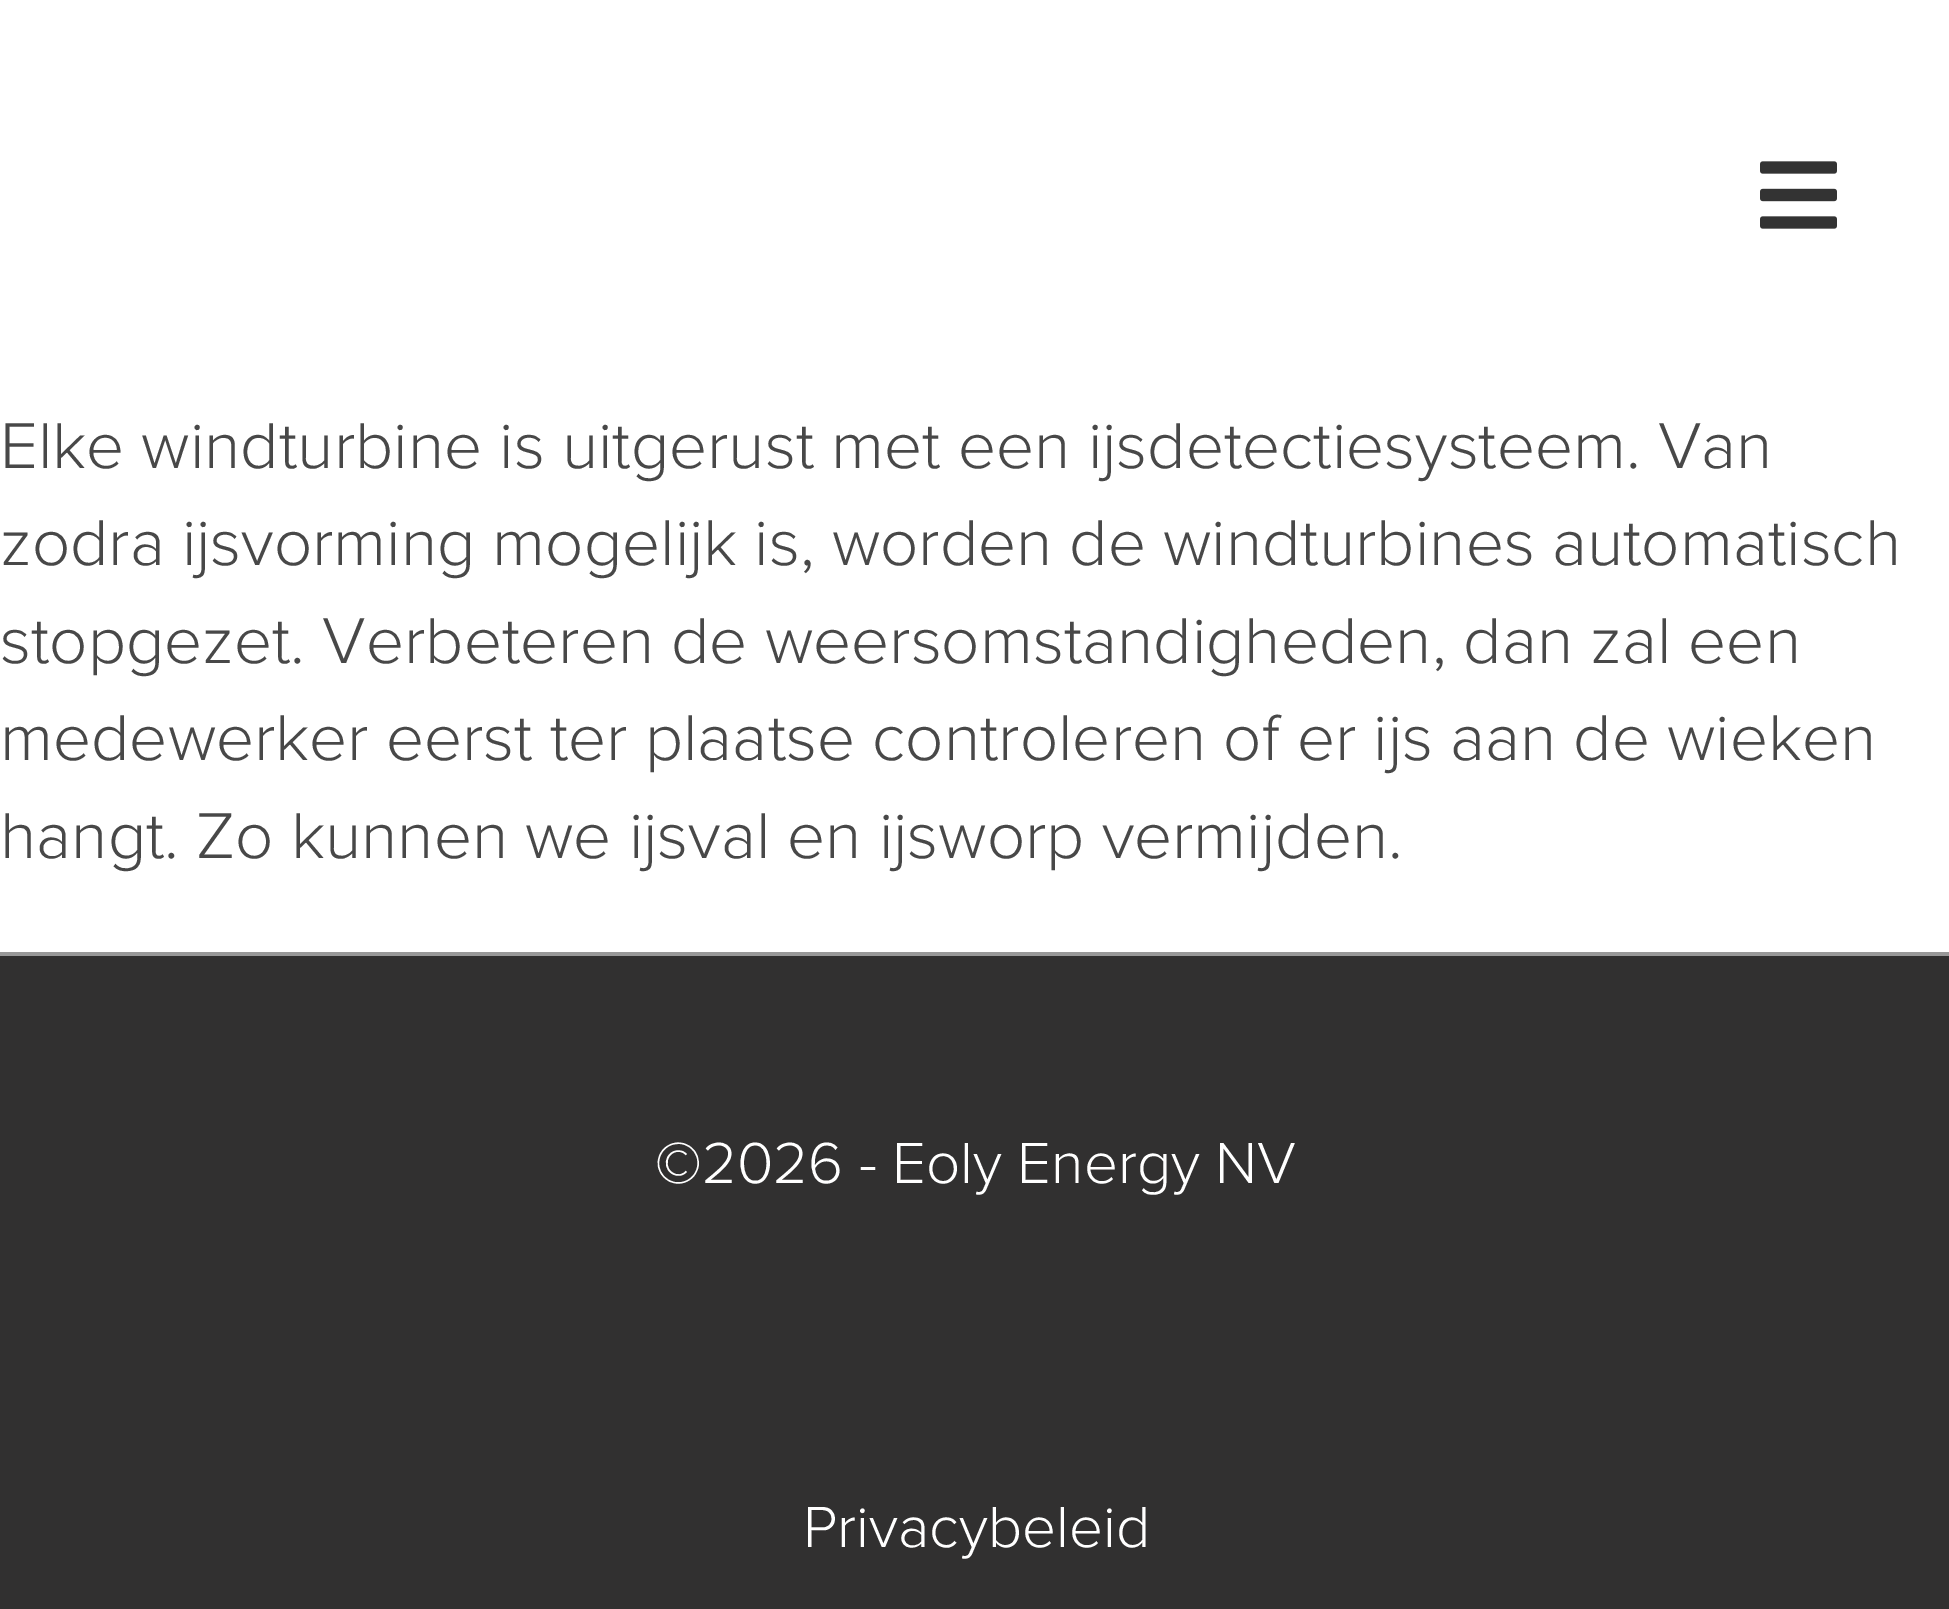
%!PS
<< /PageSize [1949 1609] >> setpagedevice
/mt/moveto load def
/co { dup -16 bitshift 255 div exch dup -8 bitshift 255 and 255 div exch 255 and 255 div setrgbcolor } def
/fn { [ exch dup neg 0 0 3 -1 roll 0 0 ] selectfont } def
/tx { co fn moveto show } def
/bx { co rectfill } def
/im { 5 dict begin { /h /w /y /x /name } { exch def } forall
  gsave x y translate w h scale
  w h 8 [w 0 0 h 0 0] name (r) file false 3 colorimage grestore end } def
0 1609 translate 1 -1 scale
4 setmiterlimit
0 0 1949 1609 16#FFFFFF bx
(media/1.raw) 1760 161 77 68 im
0 956 1949 653 16#313030 bx
0 952 1949 4 16#989898 bx
/ProximaNova-Light 67.2 fn
16#484848 co
0 468 mt -.25 0 32 (Elke windturbine is uitgerust met een ijsdetectiesysteem. Van) widthshow
0 565 mt -.25 0 32 (zodra ijsvorming mogelijk is, worden de windturbines automatisch) widthshow
0 663 mt -.25 0 32 (stopgezet. Verbeteren de weersomstandigheden, dan zal een) widthshow
0 760 mt -.25 0 32 (medewerker eerst ter plaatse controleren of er ijs aan de wieken) widthshow
0 858 mt -.25 0 32 (hangt. Zo kunnen we ijsval en ijsworp vermijden.) widthshow
(©2026 - Eoly Energy NV) 655 1183 /ProximaNova-Light 60 16#FFFFFF tx
(Privacybeleid) 803 1547 /ProximaNova-Light 60 16#FFFFFF tx
showpage
